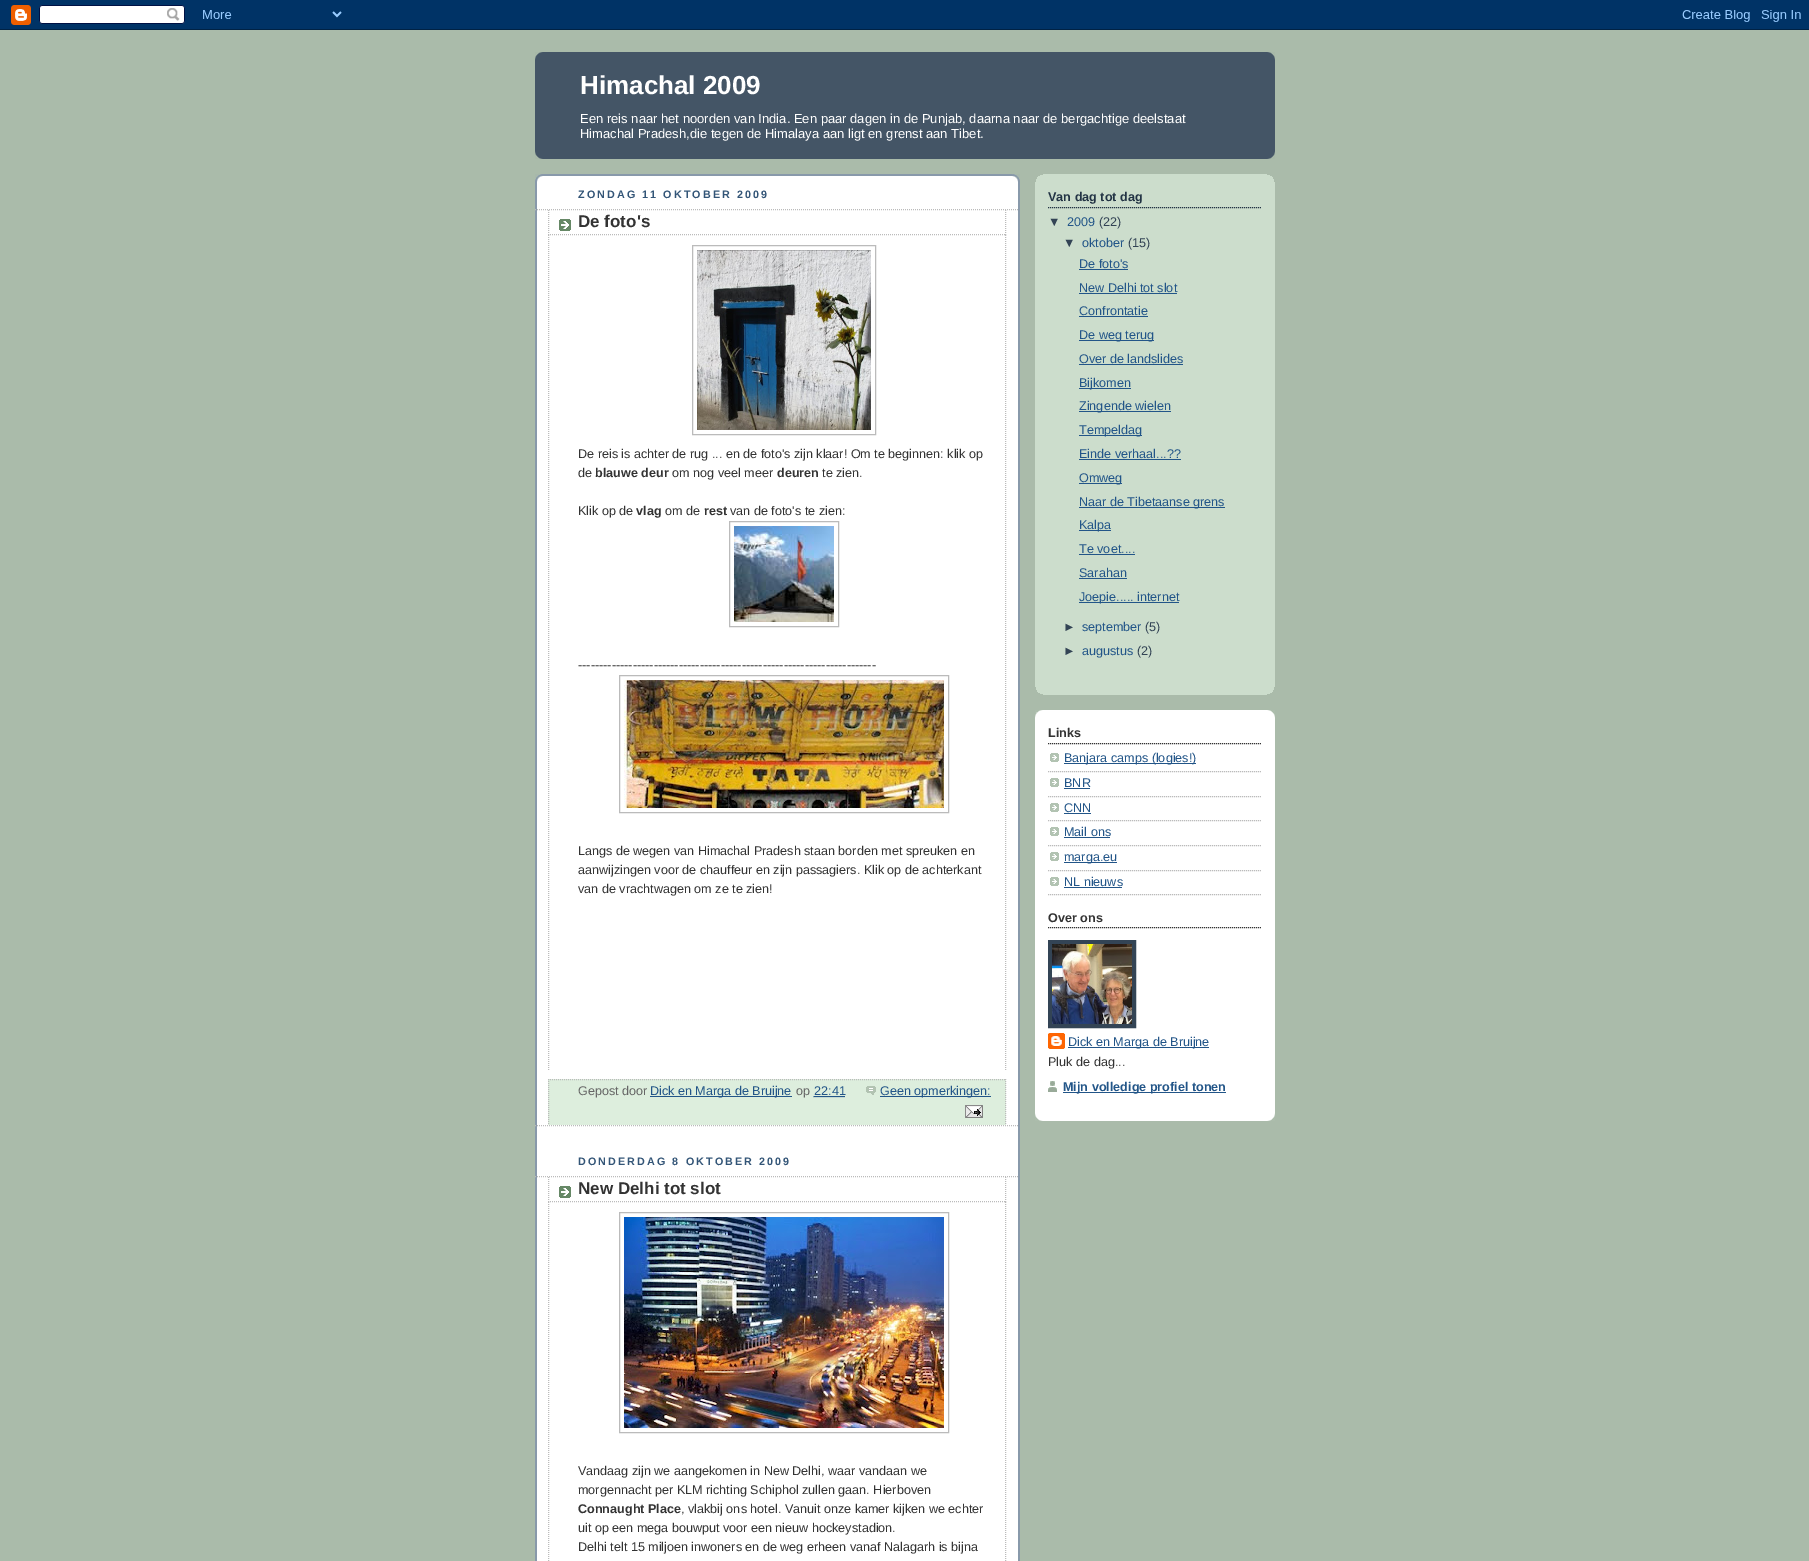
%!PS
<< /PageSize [1809 1561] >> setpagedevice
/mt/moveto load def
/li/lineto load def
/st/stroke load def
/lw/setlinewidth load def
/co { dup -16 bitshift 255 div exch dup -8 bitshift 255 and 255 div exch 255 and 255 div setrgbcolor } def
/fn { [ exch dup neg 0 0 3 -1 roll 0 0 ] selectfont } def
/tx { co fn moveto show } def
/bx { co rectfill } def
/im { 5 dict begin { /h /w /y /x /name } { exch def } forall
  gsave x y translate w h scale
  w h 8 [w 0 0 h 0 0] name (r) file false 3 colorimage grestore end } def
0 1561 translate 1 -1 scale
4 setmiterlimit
0 0 1809 1561 16#AABBAA bx
(media/1.raw) 0 0 1809 30 im
535 52 740 107 16#445566 bx
(media/2.raw) 535 52 740 8 im
(media/3.raw) 535 151 740 8 im
537 176 481 1385 16#FFFFFF bx
(media/4.raw) 535 174 485 50 im
(media/5.raw) 535 224 485 1337 im
16#BBBBBB co
[1 1] 0 setdash
535 209.5 mt 1019 209.5 li st
535 1125.5 mt 1019 1125.5 li st
(media/6.raw) 559 219 12 12 im
1005.5 210 mt 1005.5 235 li st
548 234.5 mt 1006 234.5 li st
548.5 210 mt 548.5 235 li st
1005.5 235 mt 1005.5 1070 li st
548.5 235 mt 548.5 1070 li st
[] 0 setdash
692.5 245.5 183 189 rectstroke
(media/7.raw) 697 250 174 180 im
729.5 521.5 109 105 rectstroke
(media/8.raw) 734 526 100 96 im
619.5 675.5 329 137 rectstroke
(media/9.raw) 624 680 320 128 im
548 1079 458 46 16#DDEEDD bx
16#BBBBBB co
[1 1] 0 setdash
548 1079.5 mt 1006 1079.5 li st
1005.5 1079 mt 1005.5 1125 li st
548.5 1079 mt 548.5 1125 li st
650 1096 142 1 16#225588 bx
813.5 1096.5 mt 845 1096.5 li st
814 1096 31 1 16#225588 bx
(media/10.raw) 866 1086 10 9 im
880 1096 111 1 16#225588 bx
(media/11.raw) 965 1105 18 13 im
16#BBBBBB co
535 1176.5 mt 1019 1176.5 li st
(media/6.raw) 559 1186 12 12 im
1005.5 1177 mt 1005.5 1202 li st
548 1201.5 mt 1006 1201.5 li st
548.5 1177 mt 548.5 1202 li st
1005.5 1202 mt 1005.5 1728 li st
548.5 1202 mt 548.5 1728 li st
[] 0 setdash
619.5 1212.5 329 220 rectstroke
(media/12.raw) 624 1217 320 211 im
1035 174 240 521 16#CCDDCC bx
(media/13.raw) 1035 687 240 8 im
(media/14.raw) 1035 174 240 8 im
16#223344 co
[1 1] 0 setdash
1048 207.5 mt 1262 207.5 li st
1079 269 49 1 16#225588 bx
1079 293 98 1 16#225588 bx
1079 316 69 1 16#225588 bx
1079 340 75 1 16#225588 bx
1079 364 104 1 16#225588 bx
1079 388 52 1 16#225588 bx
1079 411 92 1 16#225588 bx
1079 435 63 1 16#225588 bx
1079 459 102 1 16#225588 bx
1079 483 43 1 16#225588 bx
1079 507 146 1 16#225588 bx
1079 530 32 1 16#225588 bx
1079 554 56 1 16#225588 bx
1079 578 48 1 16#225588 bx
1079 602 100 1 16#225588 bx
1035 710 240 411 16#FFFFFF bx
(media/15.raw) 1035 710 240 8 im
(media/16.raw) 1035 1113 240 8 im
16#333333 co
1048 743.5 mt 1262 743.5 li st
(media/17.raw) 1050 753 9 9 im
16#BBBBBB co
1048 771.5 mt 1262 771.5 li st
1064 763 132 1 16#225588 bx
(media/17.raw) 1050 778 9 9 im
16#BBBBBB co
1048 796.5 mt 1262 796.5 li st
1064 788 26 1 16#225588 bx
(media/17.raw) 1050 803 9 9 im
16#BBBBBB co
1048 820.5 mt 1262 820.5 li st
1064 813 27 1 16#225588 bx
(media/17.raw) 1050 827 9 9 im
16#BBBBBB co
1048 845.5 mt 1262 845.5 li st
1064 837 46 1 16#225588 bx
(media/17.raw) 1050 852 9 9 im
16#BBBBBB co
1048 870.5 mt 1262 870.5 li st
1064 862 53 1 16#225588 bx
(media/17.raw) 1050 877 9 9 im
16#BBBBBB co
1048 894.5 mt 1262 894.5 li st
1064 887 58 1 16#225588 bx
16#333333 co
1048 927.5 mt 1262 927.5 li st
16#334455 co
4 lw
[] 0 setdash
1050 942 84 84 rectstroke
(media/18.raw) 1052 944 80 80 im
(media/19.raw) 1048 1033 17 16 im
1068 1047 141 1 16#225588 bx
(media/20.raw) 1048 1081 9 11 im
1063 1092 163 1 16#225588 bx
(Himachal 2009) 580 94 /LiberationSans-Bold 26 16#FFFFFF tx
(Een reis naar het noorden van India. Een paar dagen in de Punjab, daarna naar de bergachtige deelstaat) 580 123 /LiberationSans-Regular 13 16#FFFFFF tx
(Himachal Pradesh,die tegen de Himalaya aan ligt en grenst aan Tibet.) 580 138 /LiberationSans-Regular 13 16#FFFFFF tx
/LiberationSans-Bold 10.75 fn
16#335577 co
578 198 mt 2.1 0 (ZONDAG 11 OKTOBER 2009) ashow
(De foto's) 578 227 /LiberationSans-Bold 17 16#333333 tx
(De reis is achter de rug ... en de foto's zijn klaar! Om te beginnen: klik op) 578 458 /LiberationSans-Regular 12.6 16#333333 tx
(de) 578 477 /LiberationSans-Regular 12.6 16#333333 tx
(blauwe deur) 595 477 /LiberationSans-Bold 12.6 16#333333 tx
(om nog veel meer) 672 477 /LiberationSans-Regular 12.6 16#333333 tx
(deuren) 777 477 /LiberationSans-Bold 12.6 16#333333 tx
(te zien.) 822 477 /LiberationSans-Regular 12.6 16#333333 tx
(Klik op de) 578 515 /LiberationSans-Regular 12.6 16#333333 tx
(vlag) 636 515 /LiberationSans-Bold 12.6 16#333333 tx
(om de) 665 515 /LiberationSans-Regular 12.6 16#333333 tx
(rest) 704 515 /LiberationSans-Bold 12.6 16#333333 tx
(van de foto's te zien:) 730 515 /LiberationSans-Regular 12.6 16#333333 tx
(-----------------------------------------------------------------------) 578 669 /LiberationSans-Regular 12.6 16#333333 tx
(Langs de wegen van Himachal Pradesh staan borden met spreuken en) 578 855 /LiberationSans-Regular 12.6 16#333333 tx
(aanwijzingen voor de chauffeur en zijn passagiers. Klik op de achterkant) 578 874 /LiberationSans-Regular 12.6 16#333333 tx
(van de vrachtwagen om ze te zien!) 578 893 /LiberationSans-Regular 12.6 16#333333 tx
(Gepost door) 578 1095 /LiberationSans-Regular 12.6 16#666666 tx
(Dick en Marga de Bruijne) 650 1095 /LiberationSans-Regular 12.6 16#225588 tx
(op) 796 1095 /LiberationSans-Regular 12.6 16#666666 tx
(22:41) 814 1095 /LiberationSans-Regular 12.6 16#225588 tx
(Geen opmerkingen:) 880 1095 /LiberationSans-Regular 12.6 16#225588 tx
/LiberationSans-Bold 10.75 fn
16#335577 co
578 1165 mt 2.1 0 (DONDERDAG 8 OKTOBER 2009) ashow
(New Delhi tot slot) 578 1194 /LiberationSans-Bold 17 16#333333 tx
(Vandaag zijn we aangekomen in New Delhi, waar vandaan we) 578 1475 /LiberationSans-Regular 12.6 16#333333 tx
(morgennacht per KLM richting Schiphol zullen gaan. Hierboven) 578 1494 /LiberationSans-Regular 12.6 16#333333 tx
(Connaught Place) 578 1513 /LiberationSans-Bold 12.6 16#333333 tx
(, vlakbij ons hotel. Vanuit onze kamer kijken we echter) 681 1513 /LiberationSans-Regular 12.6 16#333333 tx
(uit op een mega bouwput voor een nieuw hockeystadion.) 578 1532 /LiberationSans-Regular 12.6 16#333333 tx
(Delhi telt 15 miljoen inwoners en de weg erheen vanaf Nalagarh is bijna) 578 1551 /LiberationSans-Regular 12.6 16#333333 tx
(Van dag tot dag) 1048 201 /LiberationSans-Bold 12.6 16#223344 tx
(▼) 1048 226 /LiberationSans-Regular 12.6 16#334455 tx
(2009) 1067 226 /LiberationSans-Regular 12.6 16#225588 tx
(\(22\)) 1099 226 /LiberationSans-Regular 12.6 16#334455 tx
(▼) 1063 247 /LiberationSans-Regular 12.6 16#334455 tx
(oktober) 1082 247 /LiberationSans-Regular 12.6 16#225588 tx
(\(15\)) 1128 247 /LiberationSans-Regular 12.6 16#334455 tx
(De foto's) 1079 268 /LiberationSans-Regular 12.6 16#225588 tx
(New Delhi tot slot) 1079 292 /LiberationSans-Regular 12.6 16#225588 tx
(Confrontatie) 1079 315 /LiberationSans-Regular 12.6 16#225588 tx
(De weg terug) 1079 339 /LiberationSans-Regular 12.6 16#225588 tx
(Over de landslides) 1079 363 /LiberationSans-Regular 12.6 16#225588 tx
(Bijkomen) 1079 387 /LiberationSans-Regular 12.6 16#225588 tx
(Zingende wielen) 1079 410 /LiberationSans-Regular 12.6 16#225588 tx
(Tempeldag) 1079 434 /LiberationSans-Regular 12.6 16#225588 tx
(Einde verhaal...??) 1079 458 /LiberationSans-Regular 12.6 16#225588 tx
(Omweg) 1079 482 /LiberationSans-Regular 12.6 16#225588 tx
(Naar de Tibetaanse grens) 1079 506 /LiberationSans-Regular 12.6 16#225588 tx
(Kalpa) 1079 529 /LiberationSans-Regular 12.6 16#225588 tx
(Te voet....) 1079 553 /LiberationSans-Regular 12.6 16#225588 tx
(Sarahan) 1079 577 /LiberationSans-Regular 12.6 16#225588 tx
(Joepie..... internet) 1079 601 /LiberationSans-Regular 12.6 16#225588 tx
(►) 1063 631 /LiberationSans-Regular 12.6 16#334455 tx
(september) 1082 631 /LiberationSans-Regular 12.6 16#225588 tx
(\(5\)) 1145 631 /LiberationSans-Regular 12.6 16#334455 tx
(►) 1063 655 /LiberationSans-Regular 12.6 16#334455 tx
(augustus) 1082 655 /LiberationSans-Regular 12.6 16#225588 tx
(\(2\)) 1137 655 /LiberationSans-Regular 12.6 16#334455 tx
(Links) 1048 737 /LiberationSans-Bold 12.6 16#333333 tx
(Banjara camps \(logies!\)) 1064 762 /LiberationSans-Regular 12.6 16#225588 tx
(BNR) 1064 787 /LiberationSans-Regular 12.6 16#225588 tx
(CNN) 1064 812 /LiberationSans-Regular 12.6 16#225588 tx
(Mail ons) 1064 836 /LiberationSans-Regular 12.6 16#225588 tx
(marga.eu) 1064 861 /LiberationSans-Regular 12.6 16#225588 tx
(NL nieuws) 1064 886 /LiberationSans-Regular 12.6 16#225588 tx
(Over ons) 1048 922 /LiberationSans-Bold 12.6 16#333333 tx
(Dick en Marga de Bruijne) 1068 1046 /LiberationSans-Regular 12.6 16#225588 tx
(Pluk de dag...) 1048 1066 /LiberationSans-Regular 12.6 16#333333 tx
(Mijn volledige profiel tonen) 1063 1091 /LiberationSans-Bold 12.6 16#225588 tx
showpage
